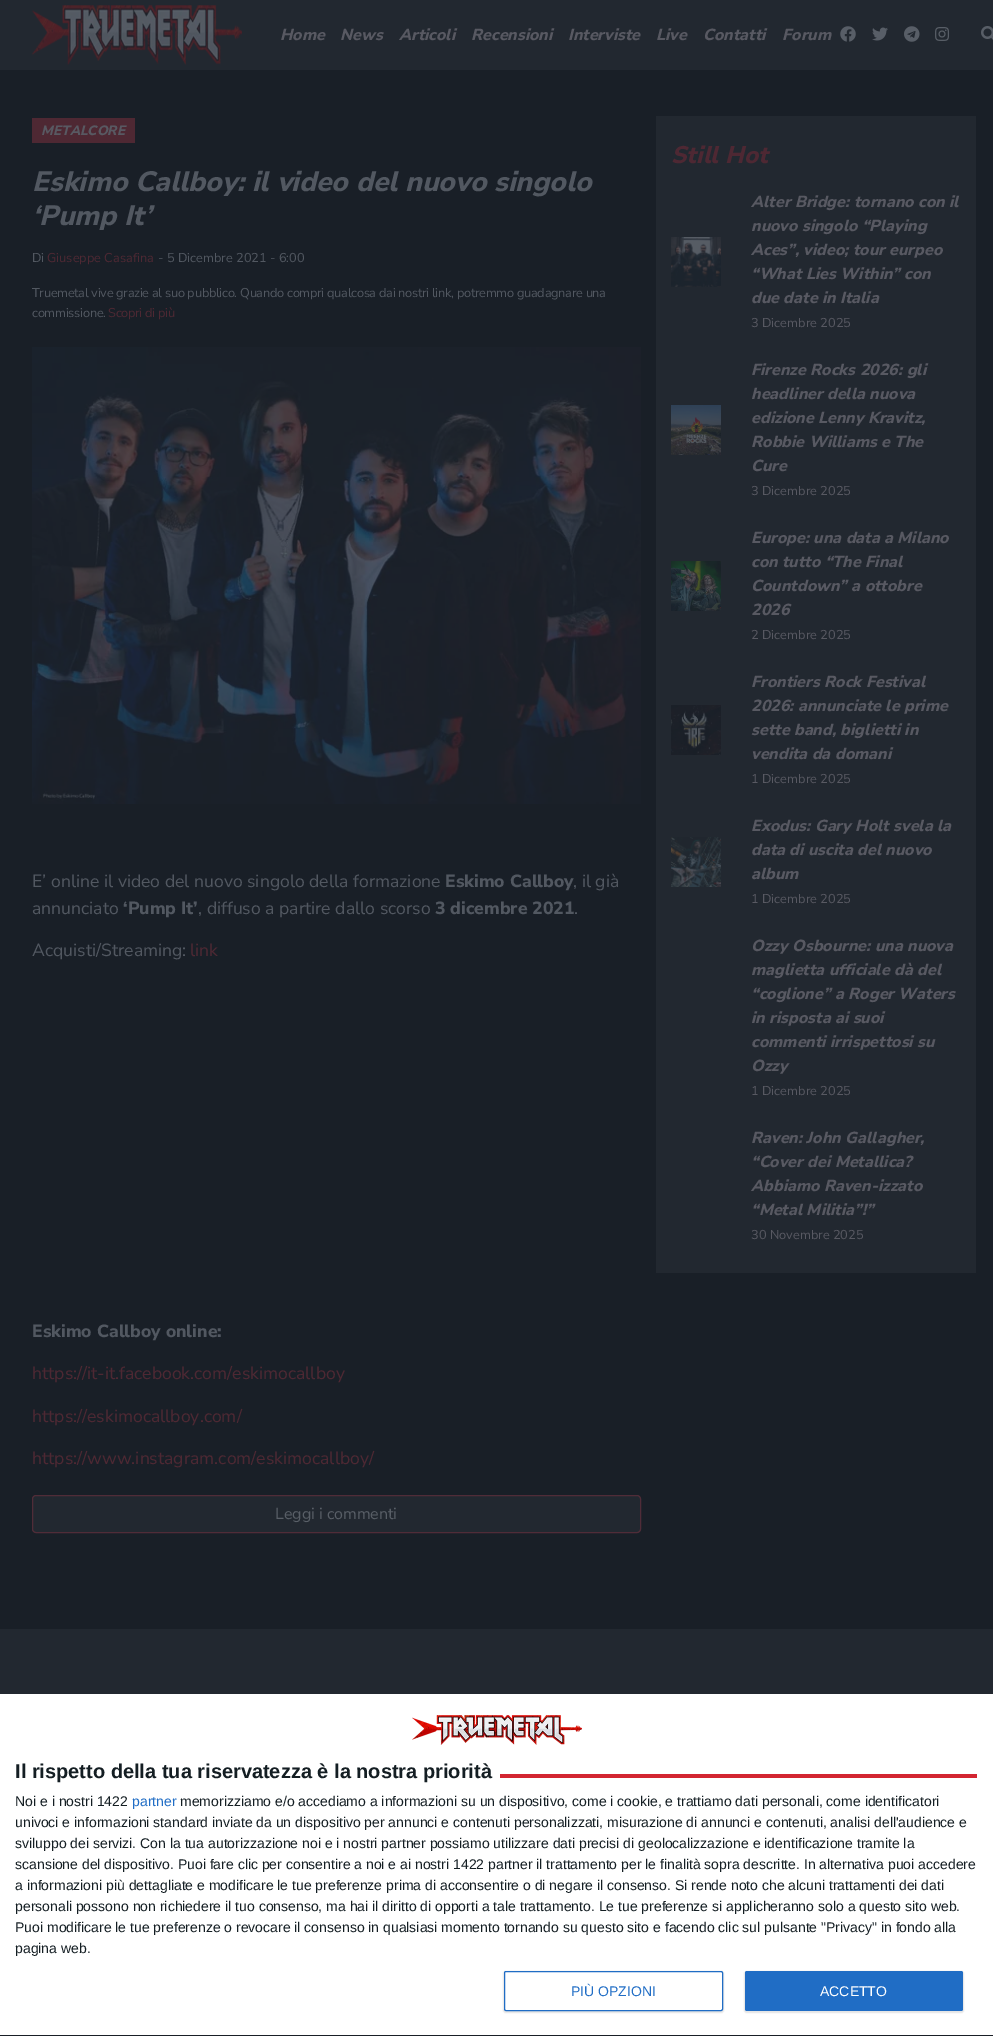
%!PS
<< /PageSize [993 2036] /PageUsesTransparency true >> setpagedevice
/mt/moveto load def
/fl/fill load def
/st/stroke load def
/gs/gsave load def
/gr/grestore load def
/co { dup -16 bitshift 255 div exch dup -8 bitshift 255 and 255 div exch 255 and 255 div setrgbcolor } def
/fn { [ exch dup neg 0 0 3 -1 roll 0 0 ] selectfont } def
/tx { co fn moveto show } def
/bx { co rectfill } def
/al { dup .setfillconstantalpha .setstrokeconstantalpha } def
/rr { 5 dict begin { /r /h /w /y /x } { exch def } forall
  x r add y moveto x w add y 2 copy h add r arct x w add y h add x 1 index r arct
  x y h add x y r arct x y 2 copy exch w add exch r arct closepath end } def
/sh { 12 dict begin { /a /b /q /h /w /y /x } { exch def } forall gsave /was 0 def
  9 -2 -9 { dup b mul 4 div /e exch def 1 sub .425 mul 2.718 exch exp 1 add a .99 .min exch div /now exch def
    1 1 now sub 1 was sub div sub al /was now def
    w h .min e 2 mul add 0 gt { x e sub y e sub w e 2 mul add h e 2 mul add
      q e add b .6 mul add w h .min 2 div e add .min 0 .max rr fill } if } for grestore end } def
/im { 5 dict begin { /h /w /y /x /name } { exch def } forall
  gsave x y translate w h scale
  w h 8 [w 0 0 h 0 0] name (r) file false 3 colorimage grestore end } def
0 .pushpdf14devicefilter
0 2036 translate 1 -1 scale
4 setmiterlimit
0 0 993 2036 16#191F27 bx
0 0 993 70 16#222830 bx
(media/1.raw) 31 5 211 60 im
(media/2.raw) 840 26 16 16 im
(media/3.raw) 872 27 16 14 im
(media/4.raw) 904 26 16 16 im
(media/5.raw) 935 27 15 14 im
(media/6.raw) 981 26 12 14 im
32 118 103 25 16#4E2833 bx
(media/7.raw) 32 347 609 457 im
16#222830 co
32.5 1495.5 608 37 3.5 rr gs fl gr
16#502C38 co
st
656 116 320 1157 16#222830 bx
(media/8.raw) 671 237 50 50 im
(media/9.raw) 671 405 50 50 im
(media/10.raw) 671 561 50 50 im
(media/11.raw) 671 705 50 50 im
(media/12.raw) 671 837 50 50 im
0 1629 993 65 16#222830 bx
0 1694 993 341 16#FFFFFF bx
(media/13.raw) 412 1715 170 30 im
500 1774 477 4 16#D32531 bx
16#000000 co
503 1971 221 42 3 .5 .1 sh
16#FFFFFF co
504.5 1971.5 218 39 1.5 rr gs fl gr
16#206DC5 co
st
16#000000 co
744 1971 220 42 3 .5 .1 sh
16#206DC5 co
745 1971 218 40 2 rr fl
(Home) 280 40 /NunitoSans-ExtraBoldItalic 16 16#585962 tx
(News) 340 40 /NunitoSans-ExtraBoldItalic 16 16#585962 tx
(Articoli) 399 40 /NunitoSans-ExtraBoldItalic 16 16#585962 tx
(Recensioni) 471 40 /NunitoSans-ExtraBoldItalic 16 16#585962 tx
(Interviste) 568 40 /NunitoSans-ExtraBoldItalic 16 16#585962 tx
(Live) 656 40 /NunitoSans-ExtraBoldItalic 16 16#585962 tx
(Contatti) 703 40 /NunitoSans-ExtraBoldItalic 16 16#585962 tx
(Forum) 782 40 /NunitoSans-ExtraBoldItalic 16 16#585962 tx
(METALCORE) 41 135 /NunitoSans-ExtraBoldItalic 13.5 16#585962 tx
(Eskimo Callboy: il video del nuovo singolo) 32 191 /NunitoSans-ExtraBoldItalic 28 16#525861 tx
(‘Pump It’) 32 225 /NunitoSans-ExtraBoldItalic 28 16#525861 tx
(Di) 32 262 /NunitoSans-Regular 12.8 16#525861 tx
(Giuseppe Casafina) 47 262 /NunitoSans-Regular 12.8 16#4E2833 tx
(- 5 Dicembre 2021 - 6:00) 158 262 /NunitoSans-Regular 12.8 16#525861 tx
32 297 mt -.3 0 (Truemetal vive grazie al suo pubblico. Quando compri qualcosa dai nostri link, potremmo guadagnare una) ashow
32 317 mt -.3 0 (commissione.) ashow
16#4E2833 co
108 317 mt -.3 0 (Scopri di più) ashow
(E’ online il video del nuovo singolo della formazione) 32 887 /NunitoSans-Regular 17.6 16#525861 tx
(Eskimo Callboy) 445 887 /NunitoSans-ExtraBold 17.6 16#525861 tx
(, il già) 573 887 /NunitoSans-Regular 17.6 16#525861 tx
(annunciato) 32 914 /NunitoSans-Regular 17.6 16#525861 tx
(‘Pump It’) 123 914 /NunitoSans-ExtraBold 17.6 16#525861 tx
(, diffuso a partire dallo scorso) 198 914 /NunitoSans-Regular 17.6 16#525861 tx
(3 dicembre 2021) 435 914 /NunitoSans-ExtraBold 17.6 16#525861 tx
(.) 574 914 /NunitoSans-Regular 17.6 16#525861 tx
(Acquisti/Streaming:) 32 956 /NunitoSans-Regular 17.6 16#525861 tx
(link) 190 956 /NunitoSans-Regular 17.6 16#4E2833 tx
(Eskimo Callboy online:) 32 1337 /NunitoSans-ExtraBold 17.6 16#525861 tx
(https://it-it.facebook.com/eskimocallboy) 32 1379 /NunitoSans-Regular 17.6 16#4E2833 tx
(https://eskimocallboy.com/) 32 1422 /NunitoSans-Regular 17.6 16#4E2833 tx
(https://www.instagram.com/eskimocallboy/) 32 1464 /NunitoSans-Regular 17.6 16#4E2833 tx
(Leggi i commenti) 275 1519 /NunitoSans-Regular 16 16#595F67 tx
(Still Hot) 671 163 /NunitoSans-ExtraBoldItalic 24 16#4E2833 tx
(Alter Bridge: tornano con il) 751 207 /NunitoSans-ExtraBoldItalic 16 16#585962 tx
(nuovo singolo “Playing) 751 231 /NunitoSans-ExtraBoldItalic 16 16#585962 tx
(Aces”, video; tour eurpeo) 751 255 /NunitoSans-ExtraBoldItalic 16 16#585962 tx
(“What Lies Within” con) 751 279 /NunitoSans-ExtraBoldItalic 16 16#585962 tx
(due date in Italia) 751 303 /NunitoSans-ExtraBoldItalic 16 16#585962 tx
(3 Dicembre 2025) 751 327 /NunitoSans-Regular 12.8 16#585962 tx
(Firenze Rocks 2026: gli) 751 375 /NunitoSans-ExtraBoldItalic 16 16#585962 tx
(headliner della nuova) 751 399 /NunitoSans-ExtraBoldItalic 16 16#585962 tx
(edizione Lenny Kravitz,) 751 423 /NunitoSans-ExtraBoldItalic 16 16#585962 tx
(Robbie Williams e The) 751 447 /NunitoSans-ExtraBoldItalic 16 16#585962 tx
(Cure) 751 471 /NunitoSans-ExtraBoldItalic 16 16#585962 tx
(3 Dicembre 2025) 751 495 /NunitoSans-Regular 12.8 16#585962 tx
(Europe: una data a Milano) 751 543 /NunitoSans-ExtraBoldItalic 16 16#585962 tx
(con tutto “The Final) 751 567 /NunitoSans-ExtraBoldItalic 16 16#585962 tx
(Countdown” a ottobre) 751 591 /NunitoSans-ExtraBoldItalic 16 16#585962 tx
(2026) 751 615 /NunitoSans-ExtraBoldItalic 16 16#585962 tx
(2 Dicembre 2025) 751 639 /NunitoSans-Regular 12.8 16#585962 tx
(Frontiers Rock Festival) 751 687 /NunitoSans-ExtraBoldItalic 16 16#585962 tx
(2026: annunciate le prime) 751 711 /NunitoSans-ExtraBoldItalic 16 16#585962 tx
(sette band, biglietti in) 751 735 /NunitoSans-ExtraBoldItalic 16 16#585962 tx
(vendita da domani) 751 759 /NunitoSans-ExtraBoldItalic 16 16#585962 tx
(1 Dicembre 2025) 751 783 /NunitoSans-Regular 12.8 16#585962 tx
(Exodus: Gary Holt svela la) 751 831 /NunitoSans-ExtraBoldItalic 16 16#585962 tx
(data di uscita del nuovo) 751 855 /NunitoSans-ExtraBoldItalic 16 16#585962 tx
(album) 751 879 /NunitoSans-ExtraBoldItalic 16 16#585962 tx
(1 Dicembre 2025) 751 903 /NunitoSans-Regular 12.8 16#585962 tx
(Ozzy Osbourne: una nuova) 751 951 /NunitoSans-ExtraBoldItalic 16 16#585962 tx
(maglietta ufficiale dà del) 751 975 /NunitoSans-ExtraBoldItalic 16 16#585962 tx
(“coglione” a Roger Waters) 751 999 /NunitoSans-ExtraBoldItalic 16 16#585962 tx
(in risposta ai suoi) 751 1023 /NunitoSans-ExtraBoldItalic 16 16#585962 tx
(commenti irrispettosi su) 751 1047 /NunitoSans-ExtraBoldItalic 16 16#585962 tx
(Ozzy) 751 1071 /NunitoSans-ExtraBoldItalic 16 16#585962 tx
(1 Dicembre 2025) 751 1095 /NunitoSans-Regular 12.8 16#585962 tx
(Raven: John Gallagher,) 751 1143 /NunitoSans-ExtraBoldItalic 16 16#585962 tx
(“Cover dei Metallica?) 751 1167 /NunitoSans-ExtraBoldItalic 16 16#585962 tx
(Abbiamo Raven-izzato) 751 1191 /NunitoSans-ExtraBoldItalic 16 16#585962 tx
(“Metal Militia”!”) 751 1215 /NunitoSans-ExtraBoldItalic 16 16#585962 tx
(30 Novembre 2025) 751 1239 /NunitoSans-Regular 12.8 16#585962 tx
(Il rispetto della tua riservatezza è la nostra priorità) 15 1778 /LiberationSans-Bold 20 16#141E23 tx
(Noi e i nostri 1422) 15 1806 /LiberationSans-Regular 14 16#141E23 tx
(partner) 132 1806 /LiberationSans-Regular 14 16#206DC5 tx
(memorizziamo e/o accediamo a informazioni su un dispositivo, come i cookie, e trattiamo dati personali, come identificatori) 180 1806 /LiberationSans-Regular 14 16#141E23 tx
(univoci e informazioni standard inviate da un dispositivo per annunci e contenuti personalizzati, misurazione di annunci e contenuti, analisi dell'audience e) 15 1827 /LiberationSans-Regular 14 16#141E23 tx
(sviluppo dei servizi. Con la tua autorizzazione noi e i nostri partner possiamo utilizzare dati precisi di geolocalizzazione e identificazione tramite la) 15 1848 /LiberationSans-Regular 14 16#141E23 tx
(scansione del dispositivo. Puoi fare clic per consentire a noi e ai nostri 1422 partner il trattamento per le finalità sopra descritte. In alternativa puoi accedere) 15 1869 /LiberationSans-Regular 14 16#141E23 tx
(a informazioni più dettagliate e modificare le tue preferenze prima di acconsentire o di negare il consenso. Si rende noto che alcuni trattamenti dei dati) 15 1890 /LiberationSans-Regular 14 16#141E23 tx
(personali possono non richiedere il tuo consenso, ma hai il diritto di opporti a tale trattamento. Le tue preferenze si applicheranno solo a questo sito web.) 15 1911 /LiberationSans-Regular 14 16#141E23 tx
(Puoi modificare le tue preferenze o revocare il consenso in qualsiasi momento tornando su questo sito e facendo clic sul pulsante "Privacy" in fondo alla) 15 1932 /LiberationSans-Regular 14 16#141E23 tx
(pagina web.) 15 1953 /LiberationSans-Regular 14 16#141E23 tx
(PIÙ OPZIONI) 571 1996 /LiberationSans-Regular 14 16#206DC5 tx
(ACCETTO) 820 1996 /LiberationSans-Regular 14 16#FFFFFF tx
.poppdf14devicefilter showpage
